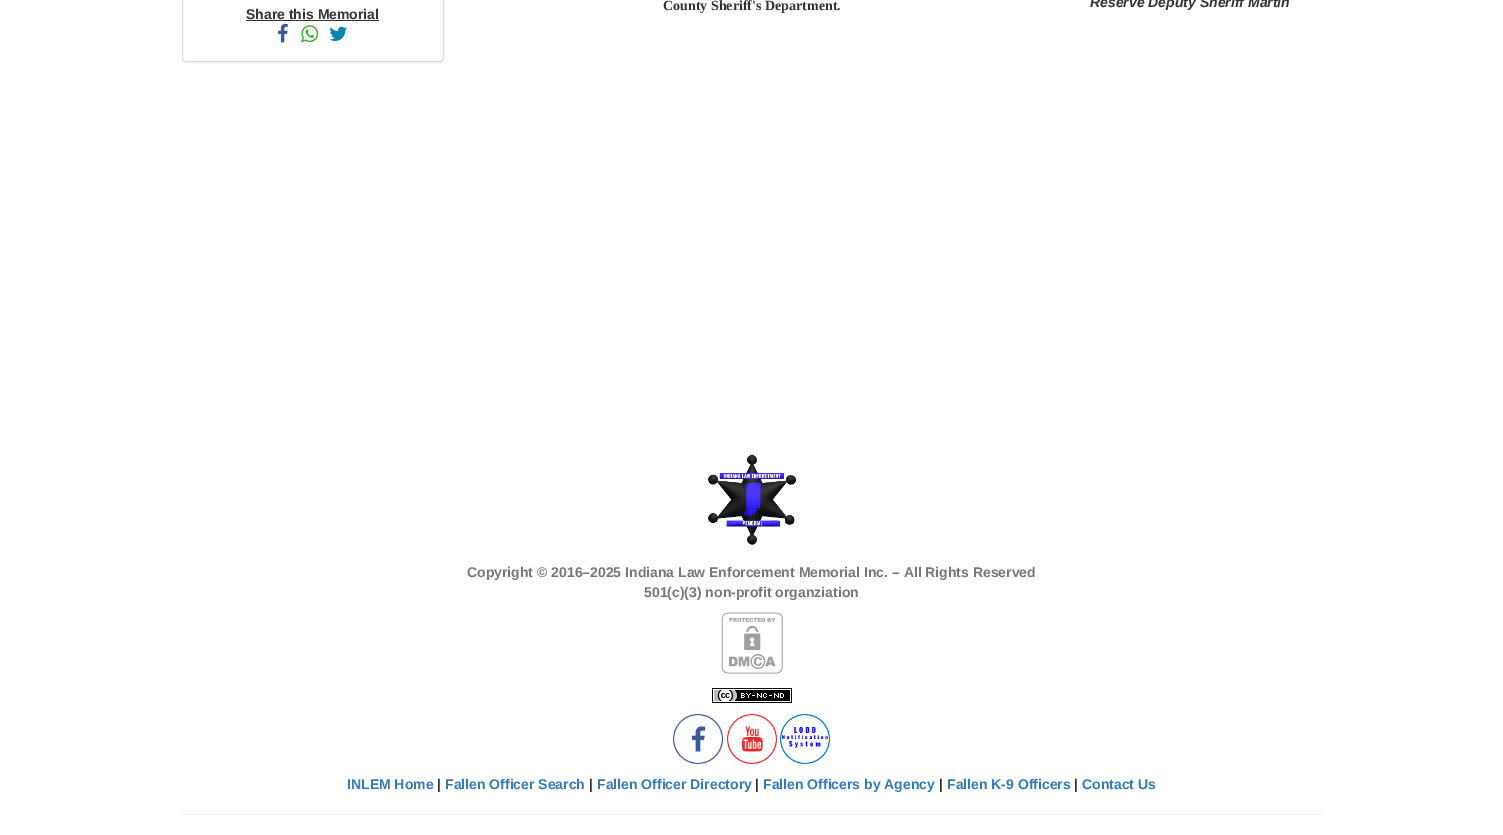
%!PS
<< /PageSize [1503 835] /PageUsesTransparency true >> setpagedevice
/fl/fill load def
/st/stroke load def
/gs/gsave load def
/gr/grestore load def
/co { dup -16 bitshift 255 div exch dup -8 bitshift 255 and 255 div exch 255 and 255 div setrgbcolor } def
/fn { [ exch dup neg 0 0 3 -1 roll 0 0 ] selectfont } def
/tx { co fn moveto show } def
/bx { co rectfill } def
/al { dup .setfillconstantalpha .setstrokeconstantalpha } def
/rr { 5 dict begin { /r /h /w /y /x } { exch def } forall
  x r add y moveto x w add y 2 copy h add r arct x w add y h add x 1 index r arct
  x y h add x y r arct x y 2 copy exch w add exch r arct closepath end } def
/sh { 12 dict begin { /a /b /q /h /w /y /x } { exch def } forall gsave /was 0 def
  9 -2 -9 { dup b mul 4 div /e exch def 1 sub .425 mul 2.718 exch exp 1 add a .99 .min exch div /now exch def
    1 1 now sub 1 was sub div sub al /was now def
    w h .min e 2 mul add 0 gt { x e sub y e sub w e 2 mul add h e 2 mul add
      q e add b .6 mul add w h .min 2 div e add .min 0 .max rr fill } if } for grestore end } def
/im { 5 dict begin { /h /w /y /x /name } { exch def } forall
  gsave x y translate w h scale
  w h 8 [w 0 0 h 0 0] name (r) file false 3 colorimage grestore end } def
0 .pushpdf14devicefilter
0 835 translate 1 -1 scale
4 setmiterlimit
0 0 1503 835 16#FFFFFF bx
16#000000 co
182 -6 262 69 4 .5 .05 sh
16#FFFFFF co
182.5 -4.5 261 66 3.5 rr gs fl gr
16#DDDDDD co
st
246 20 133 1 16#333333 bx
(media/1.raw) 278 23 10 20 im
(media/2.raw) 301 25 18 18 im
(media/3.raw) 329 26 18 15 im
(media/4.raw) 708 454 89 91 im
(media/5.raw) 721 612 62 62 im
(media/6.raw) 712 688 80 15 im
(media/7.raw) 673 714 50 50 im
(media/8.raw) 727 714 50 50 im
(media/9.raw) 780 714 50 50 im
182 814 1140 1 16#EEEEEE bx
(County Sheriff's Department.) 663 10 /LiberationSerif-Bold 14 16#333333 tx
(Reserve Deputy Sheriff Martin) 1090 7 /LiberationSans-BoldItalic 14 16#333333 tx
(Share this Memorial) 246 19 /LiberationSans-Bold 14 16#333333 tx
(Copyright © 2016–2025 Indiana Law Enforcement Memorial Inc. – All Rights Reserved) 467 577 /LiberationSans-Bold 14 16#777777 tx
(501\(c\)\(3\) non-profit organziation) 644 597 /LiberationSans-Bold 14 16#777777 tx
(INLEM Home) 347 789 /LiberationSans-Bold 14 16#337AB7 tx
(|) 437 789 /LiberationSans-Bold 14 16#333333 tx
(Fallen Officer Search) 445 789 /LiberationSans-Bold 14 16#337AB7 tx
(|) 589 789 /LiberationSans-Bold 14 16#333333 tx
(Fallen Officer Directory) 597 789 /LiberationSans-Bold 14 16#337AB7 tx
(|) 755 789 /LiberationSans-Bold 14 16#333333 tx
(Fallen Officers by Agency) 763 789 /LiberationSans-Bold 14 16#337AB7 tx
(|) 939 789 /LiberationSans-Bold 14 16#333333 tx
(Fallen K-9 Officers) 947 789 /LiberationSans-Bold 14 16#337AB7 tx
(|) 1074 789 /LiberationSans-Bold 14 16#333333 tx
(Contact Us) 1082 789 /LiberationSans-Bold 14 16#337AB7 tx
.poppdf14devicefilter showpage
